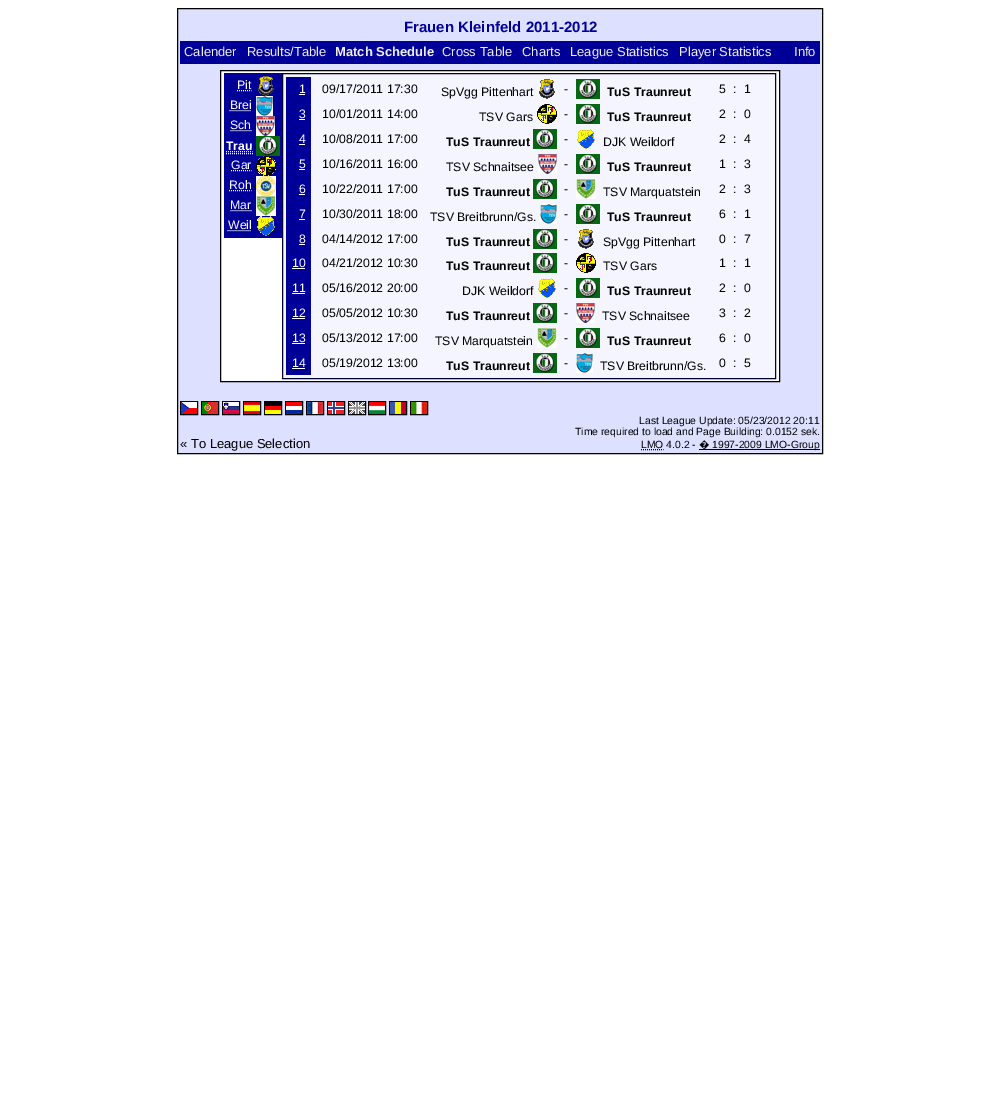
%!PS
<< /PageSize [1000 1112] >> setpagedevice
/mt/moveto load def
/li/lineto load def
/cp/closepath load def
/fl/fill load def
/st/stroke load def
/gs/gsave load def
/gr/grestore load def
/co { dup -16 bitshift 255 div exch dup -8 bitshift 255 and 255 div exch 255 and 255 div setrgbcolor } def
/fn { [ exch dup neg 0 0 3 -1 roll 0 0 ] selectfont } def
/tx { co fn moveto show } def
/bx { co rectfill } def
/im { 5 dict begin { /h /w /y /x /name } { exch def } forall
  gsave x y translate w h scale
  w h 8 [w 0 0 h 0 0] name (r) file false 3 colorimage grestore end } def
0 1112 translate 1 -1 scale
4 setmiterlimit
0 0 1000 1112 16#FFFFFF bx
16#DDE0FF co
177.5 8.5 mt 822.5 8.5 li 822.5 453.5 li 177.5 453.5 li cp gs fl gr
16#000000 co
st
180 41 640 23 16#000099 bx
16#FFFFFF co
220.5 70.5 mt 779.5 70.5 li 779.5 381.5 li 220.5 381.5 li cp gs fl gr
16#000000 co
st
224 73 58 165 16#000099 bx
16#FFFFFF co
[1 1] 0 setdash
237 90.5 mt 251.5 90.5 li st
(media/1.raw) 258 76 16 20 im
229.5 110.5 mt 251.5 110.5 li st
(media/2.raw) 256 96 17 20 im
230.5 130.5 mt 251.5 130.5 li st
(media/3.raw) 256 116 19 20 im
226 153.5 mt 253 153.5 li 226 151.5 mt 252.5 151.5 li st
(media/4.raw) 256 136 24 20 im
231 170.5 mt 251.5 170.5 li st
(media/5.raw) 256 156 20 20 im
229 190.5 mt 251.5 190.5 li st
(media/6.raw) 256 176 20 20 im
230.5 210.5 mt 251.5 210.5 li st
(media/7.raw) 256 196 20 20 im
227.5 230.5 mt 251.5 230.5 li st
(media/8.raw) 257 216 18 20 im
16#F5F5FF co
282.5 73.5 mt 775.5 73.5 li 775.5 378.5 li 282.5 378.5 li cp gs fl gr
16#000033 co
[] 0 setdash
st
286 77 25 298 16#000099 bx
299 94 6 1 16#FFFFFF bx
(media/9.raw) 539 79 16 20 im
(media/4.raw) 576 79 24 20 im
299 119 6 1 16#FFFFFF bx
(media/10.raw) 537 104 20 20 im
(media/4.raw) 576 104 24 20 im
299 144 6 1 16#FFFFFF bx
(media/4.raw) 533 129 24 20 im
(media/11.raw) 577 129 18 20 im
299 169 6 1 16#FFFFFF bx
(media/3.raw) 538 154 19 20 im
(media/4.raw) 576 154 24 20 im
299 194 6 1 16#FFFFFF bx
(media/4.raw) 533 179 24 20 im
(media/7.raw) 576 179 20 20 im
299 219 6 1 16#FFFFFF bx
(media/2.raw) 540 204 17 20 im
(media/4.raw) 576 204 24 20 im
299 244 6 1 16#FFFFFF bx
(media/4.raw) 533 229 24 20 im
(media/9.raw) 578 229 16 20 im
292 268 13 1 16#FFFFFF bx
(media/4.raw) 533 253 24 20 im
(media/10.raw) 576 253 20 20 im
292 293 13 1 16#FFFFFF bx
(media/11.raw) 538 278 18 20 im
(media/4.raw) 576 278 24 20 im
292 318 13 1 16#FFFFFF bx
(media/4.raw) 533 303 24 20 im
(media/3.raw) 576 303 19 20 im
292 343 13 1 16#FFFFFF bx
(media/7.raw) 537 328 20 20 im
(media/4.raw) 576 328 24 20 im
292 368 13 1 16#FFFFFF bx
(media/4.raw) 533 353 24 20 im
(media/2.raw) 576 353 17 20 im
16#000000 co
180.5 401.5 17 13 rectstroke
201.5 401.5 17 13 rectstroke
222.5 401.5 17 13 rectstroke
243.5 401.5 17 13 rectstroke
264.5 401.5 17 13 rectstroke
285.5 401.5 17 13 rectstroke
306.5 401.5 17 13 rectstroke
327.5 401.5 17 13 rectstroke
348.5 401.5 17 13 rectstroke
368.5 401.5 17 13 rectstroke
389.5 401.5 17 13 rectstroke
410.5 401.5 17 13 rectstroke
(media/12.raw) 181 402 16 12 im
(media/13.raw) 202 402 16 12 im
(media/14.raw) 223 402 16 12 im
(media/15.raw) 244 402 16 12 im
(media/16.raw) 265 402 16 12 im
(media/17.raw) 286 402 16 12 im
(media/18.raw) 307 402 16 12 im
(media/19.raw) 328 402 16 12 im
(media/20.raw) 349 402 16 12 im
(media/21.raw) 369 402 16 12 im
(media/22.raw) 390 402 16 12 im
(media/23.raw) 411 402 16 12 im
[1 1] 0 setdash
641 449.5 mt 663.5 449.5 li st
699 449 121 1 16#000000 bx
(Frauen Kleinfeld 2011-2012) 404 32 /LiberationSans-Bold 15 16#000099 tx
(Calender) 184 56 /LiberationSans-Regular 13 16#EEEEEE tx
(Results/Table) 247 56 /LiberationSans-Regular 13 16#EEEEEE tx
(Match Schedule) 335 56 /LiberationSans-Bold 13 16#EEEEEE tx
(Cross Table) 442 56 /LiberationSans-Regular 13 16#EEEEEE tx
(Charts) 522 56 /LiberationSans-Regular 13 16#EEEEEE tx
(League Statistics) 570 56 /LiberationSans-Regular 13 16#EEEEEE tx
(Player Statistics) 679 56 /LiberationSans-Regular 13 16#EEEEEE tx
(Info) 794 56 /LiberationSans-Regular 13 16#EEEEEE tx
(Pit) 237 89 /LiberationSans-Regular 12.25 16#FFFFFF tx
(Brei) 230 109 /LiberationSans-Regular 12.25 16#FFFFFF tx
(Sch) 230 129 /LiberationSans-Regular 12.25 16#FFFFFF tx
(Trau) 226 150 /LiberationSans-Bold 12.25 16#FFFFFF tx
(Gar) 231 169 /LiberationSans-Regular 12.25 16#FFFFFF tx
(Roh) 229 189 /LiberationSans-Regular 12.25 16#FFFFFF tx
(Mar) 230 209 /LiberationSans-Regular 12.25 16#FFFFFF tx
(Weil) 228 229 /LiberationSans-Regular 12.25 16#FFFFFF tx
(1) 299 93 /LiberationSans-Regular 12.25 16#FFFFFF tx
(09/17/2011 17:30) 322 93 /LiberationSans-Regular 12.25 16#000000 tx
(SpVgg Pittenhart) 441 96 /LiberationSans-Regular 12.25 16#000000 tx
(-) 564 93 /LiberationSans-Regular 12.25 16#000000 tx
(TuS Traunreut) 607 96 /LiberationSans-Bold 12.25 16#000000 tx
(5) 719 93 /LiberationSans-Regular 12.25 16#000000 tx
(:) 733 93 /LiberationSans-Regular 12.25 16#000000 tx
(1) 744 93 /LiberationSans-Regular 12.25 16#000000 tx
(3) 299 118 /LiberationSans-Regular 12.25 16#FFFFFF tx
(10/01/2011 14:00) 322 118 /LiberationSans-Regular 12.25 16#000000 tx
(TSV Gars) 479 121 /LiberationSans-Regular 12.25 16#000000 tx
(-) 564 118 /LiberationSans-Regular 12.25 16#000000 tx
(TuS Traunreut) 607 121 /LiberationSans-Bold 12.25 16#000000 tx
(2) 719 118 /LiberationSans-Regular 12.25 16#000000 tx
(:) 733 118 /LiberationSans-Regular 12.25 16#000000 tx
(0) 744 118 /LiberationSans-Regular 12.25 16#000000 tx
(4) 299 143 /LiberationSans-Regular 12.25 16#FFFFFF tx
(10/08/2011 17:00) 322 143 /LiberationSans-Regular 12.25 16#000000 tx
(TuS Traunreut) 446 146 /LiberationSans-Bold 12.25 16#000000 tx
(-) 564 143 /LiberationSans-Regular 12.25 16#000000 tx
(DJK Weildorf) 603 146 /LiberationSans-Regular 12.25 16#000000 tx
(2) 719 143 /LiberationSans-Regular 12.25 16#000000 tx
(:) 733 143 /LiberationSans-Regular 12.25 16#000000 tx
(4) 744 143 /LiberationSans-Regular 12.25 16#000000 tx
(5) 299 168 /LiberationSans-Regular 12.25 16#FFFFFF tx
(10/16/2011 16:00) 322 168 /LiberationSans-Regular 12.25 16#000000 tx
(TSV Schnaitsee) 446 171 /LiberationSans-Regular 12.25 16#000000 tx
(-) 564 168 /LiberationSans-Regular 12.25 16#000000 tx
(TuS Traunreut) 607 171 /LiberationSans-Bold 12.25 16#000000 tx
(1) 719 168 /LiberationSans-Regular 12.25 16#000000 tx
(:) 733 168 /LiberationSans-Regular 12.25 16#000000 tx
(3) 744 168 /LiberationSans-Regular 12.25 16#000000 tx
(6) 299 193 /LiberationSans-Regular 12.25 16#FFFFFF tx
(10/22/2011 17:00) 322 193 /LiberationSans-Regular 12.25 16#000000 tx
(TuS Traunreut) 446 196 /LiberationSans-Bold 12.25 16#000000 tx
(-) 564 193 /LiberationSans-Regular 12.25 16#000000 tx
(TSV Marquatstein) 603 196 /LiberationSans-Regular 12.25 16#000000 tx
(2) 719 193 /LiberationSans-Regular 12.25 16#000000 tx
(:) 733 193 /LiberationSans-Regular 12.25 16#000000 tx
(3) 744 193 /LiberationSans-Regular 12.25 16#000000 tx
(7) 299 218 /LiberationSans-Regular 12.25 16#FFFFFF tx
(10/30/2011 18:00) 322 218 /LiberationSans-Regular 12.25 16#000000 tx
(TSV Breitbrunn/Gs.) 430 221 /LiberationSans-Regular 12.25 16#000000 tx
(-) 564 218 /LiberationSans-Regular 12.25 16#000000 tx
(TuS Traunreut) 607 221 /LiberationSans-Bold 12.25 16#000000 tx
(6) 719 218 /LiberationSans-Regular 12.25 16#000000 tx
(:) 733 218 /LiberationSans-Regular 12.25 16#000000 tx
(1) 744 218 /LiberationSans-Regular 12.25 16#000000 tx
(8) 299 243 /LiberationSans-Regular 12.25 16#FFFFFF tx
(04/14/2012 17:00) 322 243 /LiberationSans-Regular 12.25 16#000000 tx
(TuS Traunreut) 446 246 /LiberationSans-Bold 12.25 16#000000 tx
(-) 564 243 /LiberationSans-Regular 12.25 16#000000 tx
(SpVgg Pittenhart) 603 246 /LiberationSans-Regular 12.25 16#000000 tx
(0) 719 243 /LiberationSans-Regular 12.25 16#000000 tx
(:) 733 243 /LiberationSans-Regular 12.25 16#000000 tx
(7) 744 243 /LiberationSans-Regular 12.25 16#000000 tx
(10) 292 267 /LiberationSans-Regular 12.25 16#FFFFFF tx
(04/21/2012 10:30) 322 267 /LiberationSans-Regular 12.25 16#000000 tx
(TuS Traunreut) 446 270 /LiberationSans-Bold 12.25 16#000000 tx
(-) 564 267 /LiberationSans-Regular 12.25 16#000000 tx
(TSV Gars) 603 270 /LiberationSans-Regular 12.25 16#000000 tx
(1) 719 267 /LiberationSans-Regular 12.25 16#000000 tx
(:) 733 267 /LiberationSans-Regular 12.25 16#000000 tx
(1) 744 267 /LiberationSans-Regular 12.25 16#000000 tx
(11) 292 292 /LiberationSans-Regular 12.25 16#FFFFFF tx
(05/16/2012 20:00) 322 292 /LiberationSans-Regular 12.25 16#000000 tx
(DJK Weildorf) 462 295 /LiberationSans-Regular 12.25 16#000000 tx
(-) 564 292 /LiberationSans-Regular 12.25 16#000000 tx
(TuS Traunreut) 607 295 /LiberationSans-Bold 12.25 16#000000 tx
(2) 719 292 /LiberationSans-Regular 12.25 16#000000 tx
(:) 733 292 /LiberationSans-Regular 12.25 16#000000 tx
(0) 744 292 /LiberationSans-Regular 12.25 16#000000 tx
(12) 292 317 /LiberationSans-Regular 12.25 16#FFFFFF tx
(05/05/2012 10:30) 322 317 /LiberationSans-Regular 12.25 16#000000 tx
(TuS Traunreut) 446 320 /LiberationSans-Bold 12.25 16#000000 tx
(-) 564 317 /LiberationSans-Regular 12.25 16#000000 tx
(TSV Schnaitsee) 602 320 /LiberationSans-Regular 12.25 16#000000 tx
(3) 719 317 /LiberationSans-Regular 12.25 16#000000 tx
(:) 733 317 /LiberationSans-Regular 12.25 16#000000 tx
(2) 744 317 /LiberationSans-Regular 12.25 16#000000 tx
(13) 292 342 /LiberationSans-Regular 12.25 16#FFFFFF tx
(05/13/2012 17:00) 322 342 /LiberationSans-Regular 12.25 16#000000 tx
(TSV Marquatstein) 435 345 /LiberationSans-Regular 12.25 16#000000 tx
(-) 564 342 /LiberationSans-Regular 12.25 16#000000 tx
(TuS Traunreut) 607 345 /LiberationSans-Bold 12.25 16#000000 tx
(6) 719 342 /LiberationSans-Regular 12.25 16#000000 tx
(:) 733 342 /LiberationSans-Regular 12.25 16#000000 tx
(0) 744 342 /LiberationSans-Regular 12.25 16#000000 tx
(14) 292 367 /LiberationSans-Regular 12.25 16#FFFFFF tx
(05/19/2012 13:00) 322 367 /LiberationSans-Regular 12.25 16#000000 tx
(TuS Traunreut) 446 370 /LiberationSans-Bold 12.25 16#000000 tx
(-) 564 367 /LiberationSans-Regular 12.25 16#000000 tx
(TSV Breitbrunn/Gs.) 600 370 /LiberationSans-Regular 12.25 16#000000 tx
(0) 719 367 /LiberationSans-Regular 12.25 16#000000 tx
(:) 733 367 /LiberationSans-Regular 12.25 16#000000 tx
(5) 744 367 /LiberationSans-Regular 12.25 16#000000 tx
(« To League Selection) 180 448 /LiberationSans-Regular 13 16#000000 tx
(Last League Update: 05/23/2012 20:11) 639 424 /LiberationSans-Regular 10.4 16#000000 tx
(Time required to load and Page Building: 0.0152 sek.) 575 435 /LiberationSans-Regular 10.4 16#000000 tx
(LMO 4.0.2 -) 641 448 /LiberationSans-Regular 10.4 16#000000 tx
(�) 699 448 /NotoSans-Regular 10.4 16#000000 tx
(1997-2009 LMO-Group) 712 448 /LiberationSans-Regular 10.4 16#000000 tx
showpage
